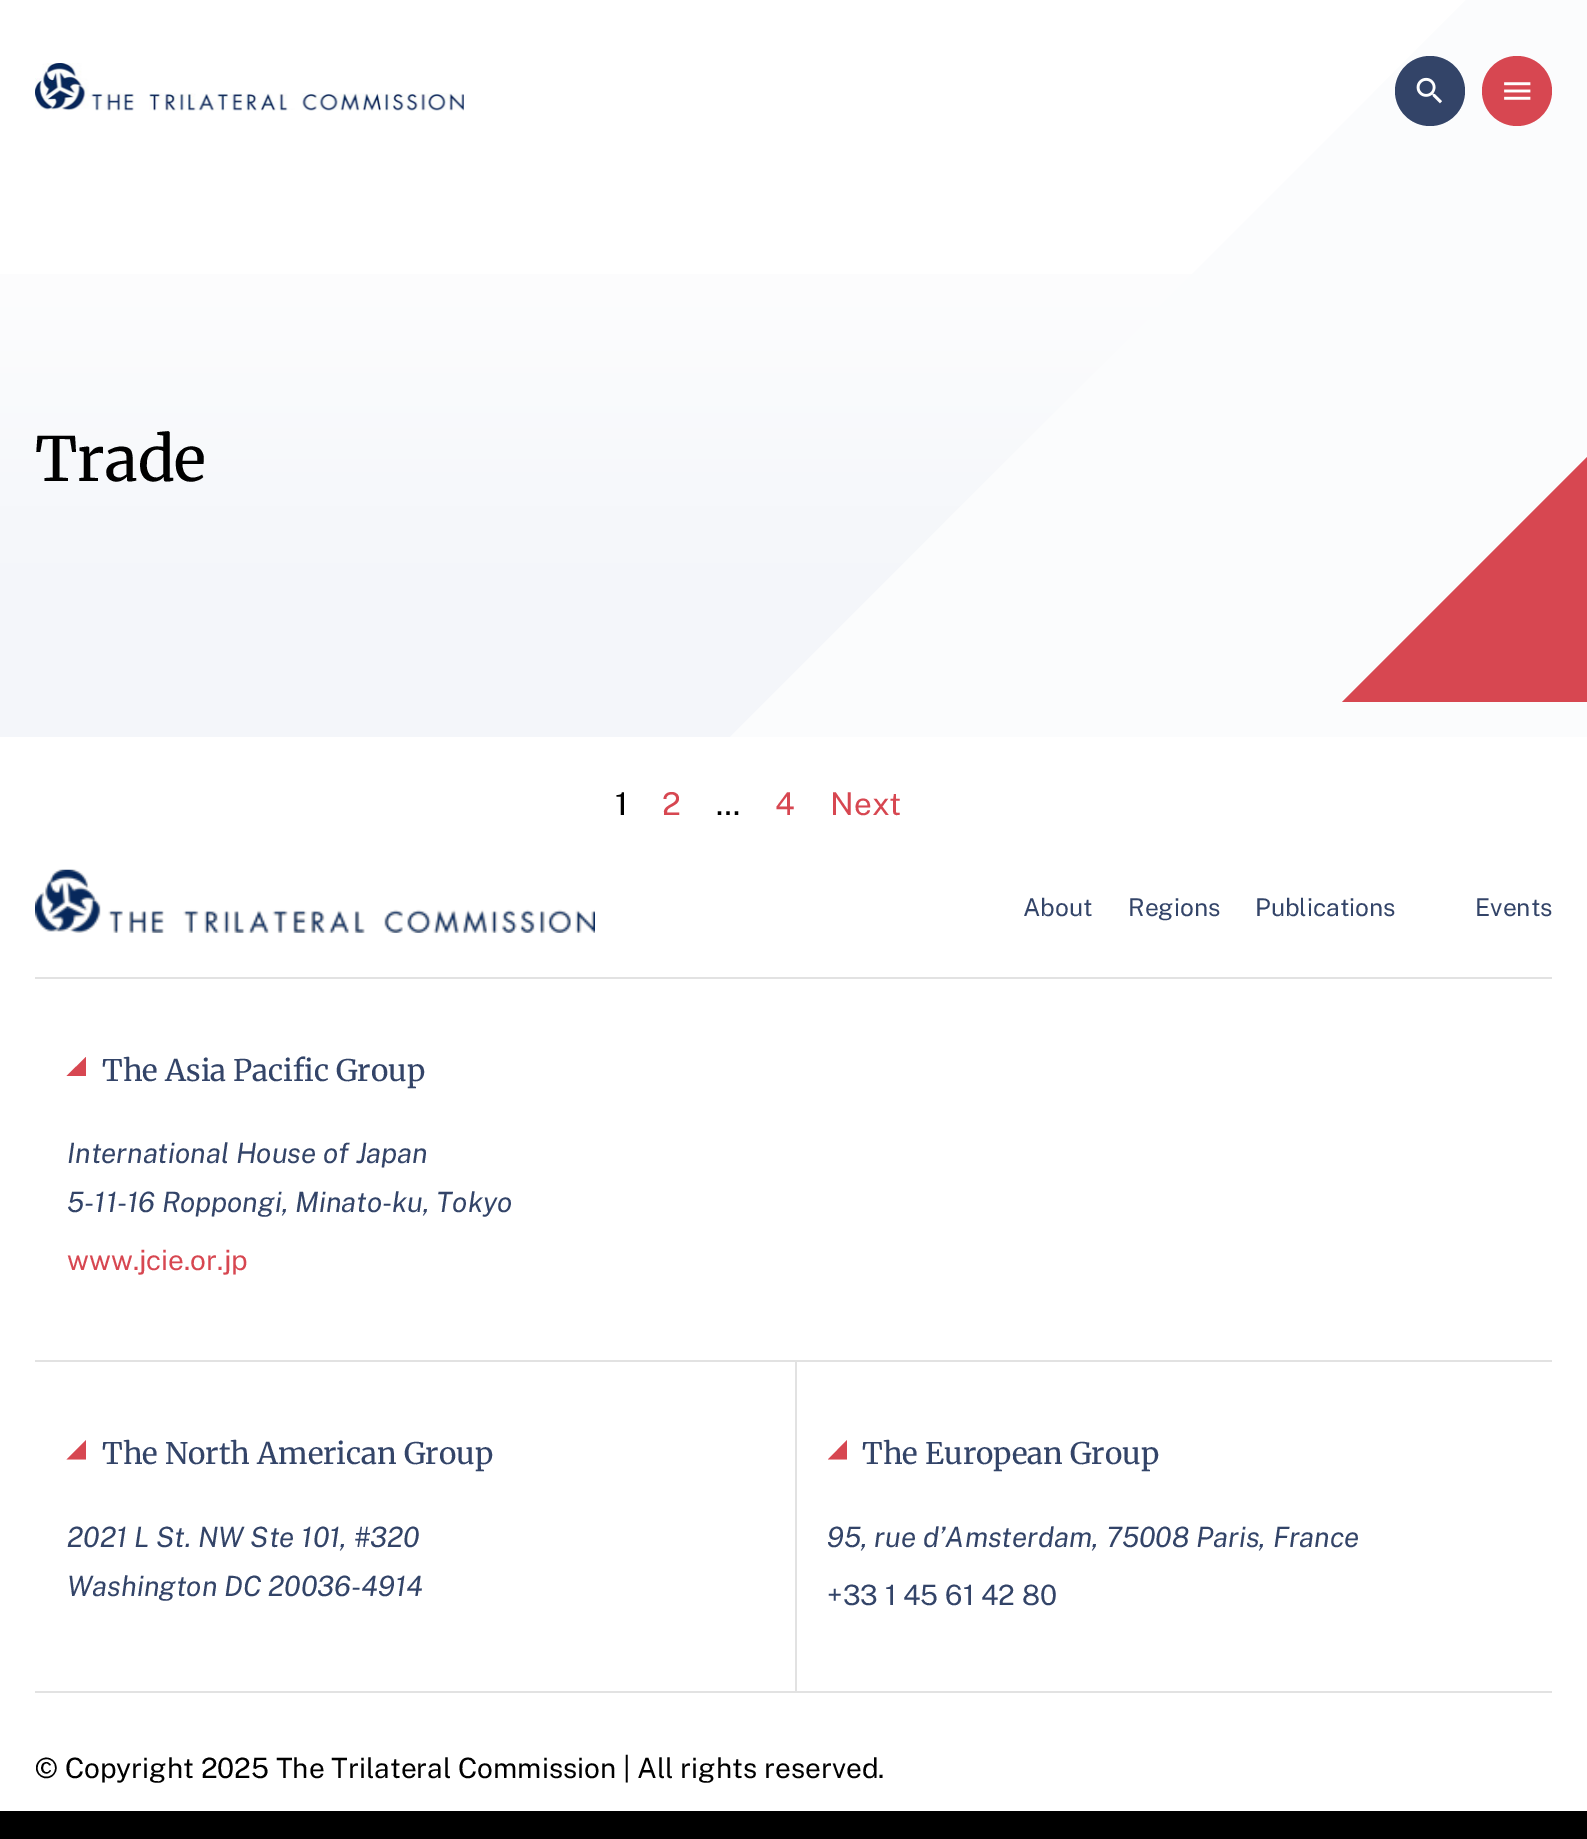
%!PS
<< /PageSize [1587 1839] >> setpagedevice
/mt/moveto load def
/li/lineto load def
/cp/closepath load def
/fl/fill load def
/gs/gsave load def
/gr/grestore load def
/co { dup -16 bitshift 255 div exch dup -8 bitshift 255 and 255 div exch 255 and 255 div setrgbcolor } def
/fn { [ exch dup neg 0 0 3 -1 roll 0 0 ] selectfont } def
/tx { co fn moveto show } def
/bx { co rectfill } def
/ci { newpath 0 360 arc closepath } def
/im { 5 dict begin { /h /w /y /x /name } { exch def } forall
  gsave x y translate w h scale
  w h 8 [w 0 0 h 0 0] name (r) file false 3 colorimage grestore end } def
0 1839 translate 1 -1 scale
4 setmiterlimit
0 0 1587 1839 16#000000 bx
0 0 1587 1811 16#FFFFFF bx
(media/1.raw) 35 63 429 48 im
gs 0 274 mt 1285 274 li 1285 737 li 0 737 li cp clip newpath
<< /ShadingType 2 /ColorSpace /DeviceRGB /Coords [794 182 794 737] /Extend [true true] /Function << /FunctionType 3 /Domain [0 1] /Functions [<< /FunctionType 2 /Domain [0 1] /C0 [1 1 1] /C1 [.957 .965 .98] /N 1 >> << /FunctionType 2 /Domain [0 1] /C0 [.957 .965 .98] /C1 [.957 .965 .98] /N 1 >>] /Bounds [.73] /Encode [0 1 0 1] >> >> shfill gr
16#FBFCFD co
1587 737 mt 730 737 li 1587 -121 li cp fl
16#334468 co
1430 91 35 ci fl
(media/2.raw) 1416 77 26 27 im
16#D74751 co
1517 91 35 ci fl
(media/3.raw) 1504 82 27 18 im
1587 702 mt 1342 702 li 1587 457 li cp fl
35 977 1517 2 16#E2E2E2 bx
(media/4.raw) 35 869 560 64 im
35 1360 1517 2 16#E2E2E2 bx
16#D74751 co
86 1076 mt 66.5 1076 li 86 1057 li cp fl
35 1691 1517 2 16#E2E2E2 bx
16#D74751 co
86 1459.5 mt 66.5 1459.5 li 86 1440 li cp fl
795 1362 2 329 16#E2E2E2 bx
16#D74751 co
847 1459.5 mt 828 1459.5 li 847 1440 li cp fl
(Trade) 35 481 /Merriweather-Regular 61 16#000000 tx
(1) 615 815 /PublicSans-Thin 31.5 16#000000 tx
(2) 662 815 /PublicSans-Thin 31.5 16#D74751 tx
(…) 716 815 /PublicSans-Thin 31.5 16#000000 tx
(4) 775 815 /PublicSans-Thin 31.5 16#D74751 tx
(Next) 830 815 /PublicSans-Thin 31.5 16#D74751 tx
(About) 1023 916 /PublicSans-Thin 24.5 16#334468 tx
(Regions) 1128 916 /PublicSans-Thin 24.5 16#334468 tx
(Publications) 1255 916 /PublicSans-Thin 24.5 16#334468 tx
(Events) 1475 916 /PublicSans-Thin 24.5 16#334468 tx
(The Asia Pacific Group) 102 1081 /Merriweather-Regular 29.75 16#334468 tx
(International House of Japan) 67 1163 /PublicSans-Italic 28 16#334468 tx
(5-11-16 Roppongi, Minato-ku, Tokyo) 67 1212 /PublicSans-Italic 28 16#334468 tx
(www.jcie.or.jp) 67 1270 /PublicSans-Thin 28 16#D74751 tx
(The North American Group) 102 1464 /Merriweather-Regular 29.75 16#334468 tx
(2021 L St. NW Ste 101, #320) 67 1547 /PublicSans-Italic 28 16#334468 tx
(Washington DC 20036-4914) 67 1596 /PublicSans-Italic 28 16#334468 tx
(The European Group) 862 1464 /Merriweather-Regular 29.75 16#334468 tx
(95, rue d’Amsterdam, 75008 Paris, France) 827 1547 /PublicSans-Italic 28 16#334468 tx
(+33 1 45 61 42 80) 827 1605 /PublicSans-Thin 28 16#334468 tx
(© Copyright 2025 The Trilateral Commission | All rights reserved.) 35 1778 /PublicSans-Thin 28 16#000000 tx
showpage
